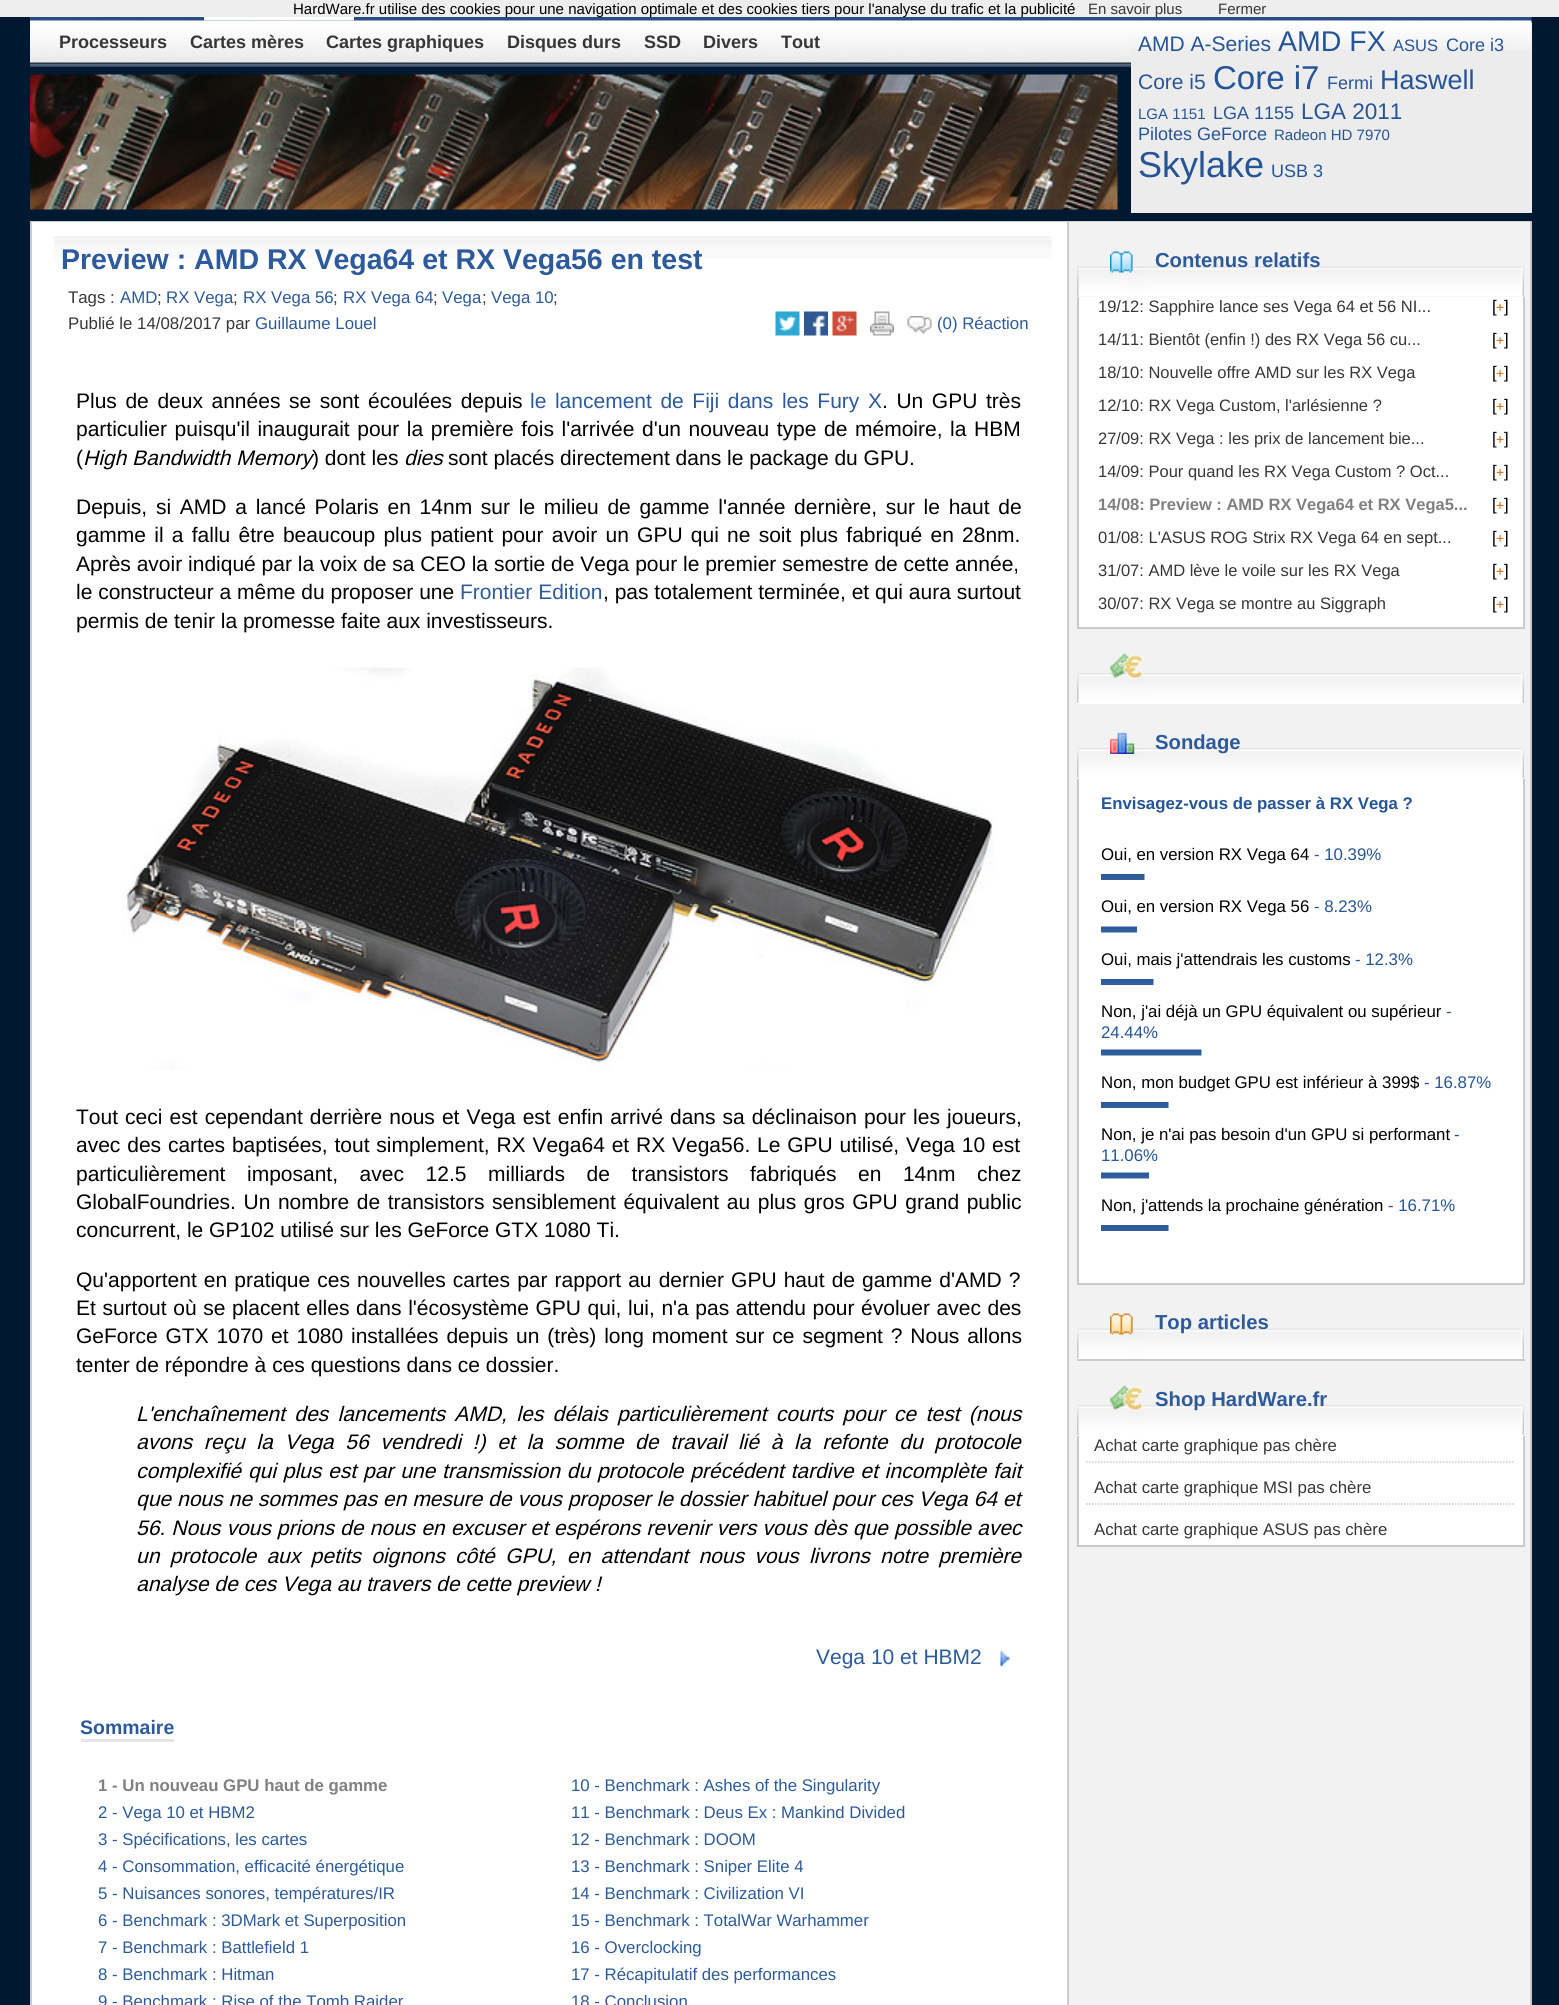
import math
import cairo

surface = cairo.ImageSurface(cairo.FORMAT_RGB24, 1559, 2005)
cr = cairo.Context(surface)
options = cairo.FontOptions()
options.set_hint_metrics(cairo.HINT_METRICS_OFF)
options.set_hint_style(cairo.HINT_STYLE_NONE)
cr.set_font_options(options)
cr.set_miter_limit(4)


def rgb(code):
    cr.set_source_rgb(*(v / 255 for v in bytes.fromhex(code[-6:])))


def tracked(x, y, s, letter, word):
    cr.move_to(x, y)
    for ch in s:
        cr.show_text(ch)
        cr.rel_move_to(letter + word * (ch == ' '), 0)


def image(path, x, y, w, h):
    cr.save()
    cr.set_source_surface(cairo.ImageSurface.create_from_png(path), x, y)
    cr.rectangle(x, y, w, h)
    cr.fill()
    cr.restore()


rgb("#001932")
cr.paint()
rgb("#eeeeee")
cr.rectangle(0, 0, 1559, 17)
cr.fill()
image("img/1.png", 30, 17, 1502, 50)
image("img/2.png", 204, 17, 150, 4)
rgb("#edecec")
cr.rectangle(1131, 23, 401, 190)
cr.fill()
image("img/3.png", 1131, 22, 401, 28)
image("img/4.png", 30, 74, 1088, 136)
cr.rectangle(31, 222, 1500, 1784)
rgb("#cacaca")
cr.stroke()
for x, y, w, h, color in [
    (1069, 222, 461, 1783, "#f2f2f2"),
    (32, 222, 1035, 1783, "#ffffff"),
    (1067, 222, 2, 1783, "#cacaca"),
]:
    rgb(color)
    cr.rectangle(x, y, w, h)
    cr.fill()
image("img/5.png", 54, 236, 998, 23)
image("img/6.png", 775, 311, 25, 25)
image("img/7.png", 804, 311, 24, 25)
image("img/8.png", 832, 311, 25, 25)
image("img/9.png", 870, 311, 24, 25)
image("img/10.png", 907, 316, 25, 18)
image("img/11.png", 122, 667, 874, 403)
image("img/12.png", 1000, 1650, 10, 17)
rgb("#e6e6e6")
cr.rectangle(81, 1739, 93, 3)
cr.fill()
image("img/13.png", 1072, 221, 458, 1)
image("img/14.png", 1077, 266, 447, 31)
image("img/15.png", 1110, 251, 24, 22)
for x, y, w, h, color in [
    (1079, 297, 444, 330, "#ffffff"),
    (1523, 297, 2, 332, "#cacaca"),
    (1077, 627, 447, 2, "#cacaca"),
    (1077, 297, 2, 332, "#cacaca"),
    (1077, 703, 447, 1, "#ffffff"),
]:
    rgb(color)
    cr.rectangle(x, y, w, h)
    cr.fill()
image("img/16.png", 1077, 673, 447, 30)
image("img/17.png", 1110, 653, 34, 26)
cr.rectangle(1077, 778, 447, 505)
cr.fill()
image("img/16.png", 1077, 748, 447, 30)
image("img/18.png", 1110, 732, 25, 22)
for x, y, w, h, color in [
    (1523, 779, 2, 505, "#cacaca"),
    (1077, 1283, 447, 2, "#cacaca"),
    (1077, 779, 2, 505, "#cacaca"),
]:
    rgb(color)
    cr.rectangle(x, y, w, h)
    cr.fill()
image("img/19.png", 1101, 874, 44, 6)
image("img/20.png", 1101, 926, 36, 7)
image("img/21.png", 1101, 979, 53, 6)
image("img/22.png", 1101, 1049, 101, 7)
image("img/23.png", 1101, 1102, 68, 6)
image("img/24.png", 1101, 1172, 48, 7)
image("img/23.png", 1101, 1225, 68, 6)
rgb("#ffffff")
cr.rectangle(1077, 1358, 447, 1)
cr.fill()
image("img/25.png", 1077, 1328, 447, 31)
image("img/26.png", 1110, 1313, 24, 22)
rgb("#cacaca")
cr.rectangle(1077, 1359, 448, 2)
cr.fill()
rgb("#ffffff")
cr.rectangle(1077, 1435, 447, 110)
cr.fill()
image("img/16.png", 1077, 1405, 447, 30)
image("img/17.png", 1110, 1385, 34, 26)
for x, y, w, h, color in [
    (1523, 1436, 2, 111, "#cacaca"),
    (1077, 1545, 447, 2, "#cacaca"),
    (1077, 1436, 2, 111, "#cacaca"),
]:
    rgb(color)
    cr.rectangle(x, y, w, h)
    cr.fill()
cr.new_path()
cr.move_to(1086, 1462)
cr.line_to(1515, 1462)
cr.set_line_width(1.5)
cr.set_dash([1.5, 1.5])
cr.stroke()
cr.new_path()
cr.move_to(1086, 1504)
cr.line_to(1515, 1504)
cr.stroke()
cr.select_font_face("Arimo")
cr.set_font_size(15)
rgb("#000000")
cr.move_to(293, 14)
cr.show_text("HardWare.fr utilise des cookies pour une navigation optimale et des cookies tiers pour l'analyse du trafic et la publicité")
rgb("#373737")
cr.move_to(1088, 14)
cr.show_text("En savoir plus")
cr.move_to(1218, 14)
cr.show_text("Fermer")
cr.select_font_face("Arimo", cairo.FONT_SLANT_NORMAL, cairo.FONT_WEIGHT_BOLD)
cr.set_font_size(18)
for x, y, s in [
    (59, 48, "Processeurs"),
    (190, 48, "Cartes mères"),
    (326, 48, "Cartes graphiques"),
    (507, 48, "Disques durs"),
    (644, 48, "SSD"),
    (703, 48, "Divers"),
    (781, 48, "Tout"),
]:
    cr.move_to(x, y)
    cr.show_text(s)
cr.select_font_face("Arimo")
cr.set_font_size(21)
rgb("#265597")
cr.move_to(1138, 51)
cr.show_text("AMD A-Series")
cr.set_font_size(28.5)
cr.move_to(1278, 51)
cr.show_text("AMD FX")
cr.set_font_size(16.5)
cr.move_to(1393, 51)
cr.show_text("ASUS")
cr.set_font_size(18)
cr.move_to(1446, 51)
cr.show_text("Core i3")
cr.set_font_size(21)
cr.move_to(1138, 89)
cr.show_text("Core i5")
cr.set_font_size(33)
cr.move_to(1213, 89)
cr.show_text("Core i7")
cr.set_font_size(18)
cr.move_to(1327, 89)
cr.show_text("Fermi")
cr.set_font_size(27)
cr.move_to(1380, 89)
cr.show_text("Haswell")
cr.set_font_size(15)
cr.move_to(1138, 119)
cr.show_text("LGA 1151")
cr.set_font_size(18)
cr.move_to(1213, 119)
cr.show_text("LGA 1155")
cr.set_font_size(22.5)
cr.move_to(1301, 119)
cr.show_text("LGA 2011")
cr.set_font_size(18)
cr.move_to(1138, 140)
cr.show_text("Pilotes GeForce")
cr.set_font_size(15)
cr.move_to(1274, 140)
cr.show_text("Radeon HD 7970")
cr.set_font_size(36)
cr.move_to(1138, 177)
cr.show_text("Skylake")
cr.set_font_size(18)
cr.move_to(1271, 177)
cr.show_text("USB 3")
cr.select_font_face("Arimo", cairo.FONT_SLANT_NORMAL, cairo.FONT_WEIGHT_BOLD)
cr.set_font_size(28.5)
rgb("#2d5a9a")
cr.move_to(61, 269)
cr.show_text("Preview : AMD RX Vega64 et RX Vega56 en test")
cr.select_font_face("Arimo")
cr.set_font_size(16.8)
rgb("#373737")
cr.move_to(68, 303)
cr.show_text("Tags :")
rgb("#2d5a9a")
cr.move_to(120, 303)
cr.show_text("AMD")
rgb("#373737")
cr.move_to(157, 303)
cr.show_text(";")
rgb("#2d5a9a")
cr.move_to(166, 303)
cr.show_text("RX Vega")
rgb("#373737")
cr.move_to(233, 303)
cr.show_text(";")
rgb("#2d5a9a")
cr.move_to(243, 303)
cr.show_text("RX Vega 56")
rgb("#373737")
cr.move_to(333, 303)
cr.show_text(";")
rgb("#2d5a9a")
cr.move_to(343, 303)
cr.show_text("RX Vega 64")
rgb("#373737")
cr.move_to(433, 303)
cr.show_text(";")
rgb("#2d5a9a")
cr.move_to(442, 303)
cr.show_text("Vega")
rgb("#373737")
cr.move_to(482, 303)
cr.show_text(";")
rgb("#2d5a9a")
cr.move_to(491, 303)
cr.show_text("Vega 10")
rgb("#373737")
cr.move_to(553, 303)
cr.show_text(";")
cr.move_to(68, 329)
cr.show_text("Publié le 14/08/2017 par")
rgb("#2d5a9a")
cr.move_to(255, 329)
cr.show_text("Guillaume Louel")
cr.move_to(937, 329)
cr.show_text("(0) Réaction")
cr.set_font_size(21)
rgb("#000000")
tracked(76, 408, "Plus de deux années se sont écoulées depuis", 0, 2.75)
rgb("#2d5a9a")
tracked(530, 408, "le lancement de Fiji dans les Fury X", 0, 2.75)
rgb("#000000")
tracked(882, 408, ". Un GPU très", 0, 2.75)
tracked(76, 436, "particulier puisqu'il inaugurait pour la première fois l'arrivée d'un nouveau type de mémoire, la HBM", 0, 1.75)
cr.move_to(76, 465)
cr.show_text("(")
cr.select_font_face("Arimo", cairo.FONT_SLANT_ITALIC)
cr.move_to(83, 465)
cr.show_text("High Bandwidth Memory")
cr.select_font_face("Arimo")
cr.move_to(312, 465)
cr.show_text(") dont les")
cr.select_font_face("Arimo", cairo.FONT_SLANT_ITALIC)
cr.move_to(404, 465)
cr.show_text("dies")
cr.select_font_face("Arimo")
cr.move_to(448, 465)
cr.show_text("sont placés directement dans le package du GPU.")
tracked(76, 514, "Depuis, si AMD a lancé Polaris en 14nm sur le milieu de gamme l'année dernière, sur le haut de", 0, 2.9)
tracked(76, 542, "gamme il a fallu être beaucoup plus patient pour avoir un GPU qui ne soit plus fabriqué en 28nm.", 0, 2.4)
cr.move_to(76, 571)
cr.show_text("Après avoir indiqué par la voix de sa CEO la sortie de Vega pour le premier semestre de cette année,")
cr.move_to(76, 599)
cr.show_text("le constructeur a même du proposer une")
rgb("#2d5a9a")
cr.move_to(460, 599)
cr.show_text("Frontier Edition")
rgb("#000000")
cr.move_to(603, 599)
cr.show_text(", pas totalement terminée, et qui aura surtout")
cr.move_to(76, 628)
cr.show_text("permis de tenir la promesse faite aux investisseurs.")
tracked(76, 1124, "Tout ceci est cependant derrière nous et Vega est enfin arrivé dans sa déclinaison pour les joueurs,", 0, 1.25)
tracked(76, 1152, "avec des cartes baptisées, tout simplement, RX Vega64 et RX Vega56. Le GPU utilisé, Vega 10 est", 0, 1)
tracked(76, 1181, "particulièrement imposant, avec 12.5 milliards de transistors fabriqués en 14nm chez", 0, 15.75)
tracked(76, 1209, "GlobalFoundries. Un nombre de transistors sensiblement équivalent au plus gros GPU grand public", 0, 1.75)
cr.move_to(76, 1237)
cr.show_text("concurrent, le GP102 utilisé sur les GeForce GTX 1080 Ti.")
tracked(76, 1287, "Qu'apportent en pratique ces nouvelles cartes par rapport au dernier GPU haut de gamme d'AMD ?", 0, 1.25)
tracked(76, 1315, "Et surtout où se placent elles dans l'écosystème GPU qui, lui, n'a pas attendu pour évoluer avec des", 0, 0.75)
tracked(76, 1343, "GeForce GTX 1070 et 1080 installées depuis un (très) long moment sur ce segment ? Nous allons", 0, 2)
cr.move_to(76, 1372)
cr.show_text("tenter de répondre à ces questions dans ce dossier.")
cr.select_font_face("Arimo", cairo.FONT_SLANT_ITALIC)
tracked(136, 1421, "L'enchaînement des lancements AMD, les délais particulièrement courts pour ce test (nous", 0, 3.6)
tracked(136, 1449, "avons reçu la Vega 56 vendredi !) et la somme de travail lié à la refonte du protocole", 0, 5.9)
tracked(136, 1478, "complexifié qui plus est par une transmission du protocole précédent tardive et incomplète fait", 0, 1)
tracked(136, 1506, "que nous ne sommes pas en mesure de vous proposer le dossier habituel pour ces Vega 64 et", 0, 0.1)
tracked(136, 1535, "56. Nous vous prions de nous en excuser et espérons revenir vers vous dès que possible avec", 0, 0.25)
tracked(136, 1563, "un protocole aux petits oignons côté GPU, en attendant nous vous livrons notre première", 0, 4.5)
cr.move_to(136, 1591)
cr.show_text("analyse de ces Vega au travers de cette preview !")
cr.select_font_face("Arimo")
rgb("#2d5a9a")
cr.move_to(816, 1664)
cr.show_text("Vega 10 et HBM2")
cr.select_font_face("Arimo", cairo.FONT_SLANT_NORMAL, cairo.FONT_WEIGHT_BOLD)
cr.set_font_size(19.5)
cr.move_to(80, 1734)
cr.show_text("Sommaire")
cr.set_font_size(16.8)
rgb("#808080")
cr.move_to(98, 1791)
cr.show_text("1 - Un nouveau GPU haut de gamme")
cr.select_font_face("Arimo")
rgb("#2d5a9a")
for x, y, s in [
    (98, 1818, "2 - Vega 10 et HBM2"),
    (98, 1845, "3 - Spécifications, les cartes"),
    (98, 1872, "4 - Consommation, efficacité énergétique"),
    (98, 1899, "5 - Nuisances sonores, températures/IR"),
    (98, 1926, "6 - Benchmark : 3DMark et Superposition"),
    (98, 1953, "7 - Benchmark : Battlefield 1"),
    (98, 1980, "8 - Benchmark : Hitman"),
    (98, 2007, "9 - Benchmark : Rise of the Tomb Raider"),
    (571, 1791, "10 - Benchmark : Ashes of the Singularity"),
    (571, 1818, "11 - Benchmark : Deus Ex : Mankind Divided"),
    (571, 1845, "12 - Benchmark : DOOM"),
    (571, 1872, "13 - Benchmark : Sniper Elite 4"),
    (571, 1899, "14 - Benchmark : Civilization VI"),
    (571, 1926, "15 - Benchmark : TotalWar Warhammer"),
    (571, 1953, "16 - Overclocking"),
    (571, 1980, "17 - Récapitulatif des performances"),
    (571, 2007, "18 - Conclusion"),
]:
    cr.move_to(x, y)
    cr.show_text(s)
cr.select_font_face("Arimo", cairo.FONT_SLANT_NORMAL, cairo.FONT_WEIGHT_BOLD)
cr.set_font_size(20.25)
cr.move_to(1155, 267)
cr.show_text("Contenus relatifs")
cr.select_font_face("Arimo")
cr.set_font_size(16.5)
rgb("#373737")
cr.move_to(1098, 312)
cr.show_text("19/12: Sapphire lance ses Vega 64 et 56 NI...")
cr.set_font_size(16.8)
rgb("#000000")
cr.move_to(1492, 312)
cr.show_text("[")
cr.set_font_size(14)
rgb("#cc6908")
cr.move_to(1496, 312)
cr.show_text("+")
cr.set_font_size(16.8)
rgb("#000000")
cr.move_to(1504, 312)
cr.show_text("]")
cr.set_font_size(16.5)
rgb("#373737")
cr.move_to(1098, 345)
cr.show_text("14/11: Bientôt (enfin !) des RX Vega 56 cu...")
cr.set_font_size(16.8)
rgb("#000000")
cr.move_to(1492, 345)
cr.show_text("[")
cr.set_font_size(14)
rgb("#cc6908")
cr.move_to(1496, 345)
cr.show_text("+")
cr.set_font_size(16.8)
rgb("#000000")
cr.move_to(1504, 345)
cr.show_text("]")
cr.set_font_size(16.5)
rgb("#373737")
cr.move_to(1098, 378)
cr.show_text("18/10: Nouvelle offre AMD sur les RX Vega")
cr.set_font_size(16.8)
rgb("#000000")
cr.move_to(1492, 378)
cr.show_text("[")
cr.set_font_size(14)
rgb("#cc6908")
cr.move_to(1496, 378)
cr.show_text("+")
cr.set_font_size(16.8)
rgb("#000000")
cr.move_to(1504, 378)
cr.show_text("]")
cr.set_font_size(16.5)
rgb("#373737")
cr.move_to(1098, 411)
cr.show_text("12/10: RX Vega Custom, l'arlésienne ?")
cr.set_font_size(16.8)
rgb("#000000")
cr.move_to(1492, 411)
cr.show_text("[")
cr.set_font_size(14)
rgb("#cc6908")
cr.move_to(1496, 411)
cr.show_text("+")
cr.set_font_size(16.8)
rgb("#000000")
cr.move_to(1504, 411)
cr.show_text("]")
cr.set_font_size(16.5)
rgb("#373737")
cr.move_to(1098, 444)
cr.show_text("27/09: RX Vega : les prix de lancement bie...")
cr.set_font_size(16.8)
rgb("#000000")
cr.move_to(1492, 444)
cr.show_text("[")
cr.set_font_size(14)
rgb("#cc6908")
cr.move_to(1496, 444)
cr.show_text("+")
cr.set_font_size(16.8)
rgb("#000000")
cr.move_to(1504, 444)
cr.show_text("]")
cr.set_font_size(16.5)
rgb("#373737")
cr.move_to(1098, 477)
cr.show_text("14/09: Pour quand les RX Vega Custom ? Oct...")
cr.set_font_size(16.8)
rgb("#000000")
cr.move_to(1492, 477)
cr.show_text("[")
cr.set_font_size(14)
rgb("#cc6908")
cr.move_to(1496, 477)
cr.show_text("+")
cr.set_font_size(16.8)
rgb("#000000")
cr.move_to(1504, 477)
cr.show_text("]")
cr.select_font_face("Arimo", cairo.FONT_SLANT_NORMAL, cairo.FONT_WEIGHT_BOLD)
cr.set_font_size(16.5)
rgb("#808080")
cr.move_to(1098, 510)
cr.show_text("14/08: Preview : AMD RX Vega64 et RX Vega5...")
cr.select_font_face("Arimo")
cr.set_font_size(16.8)
rgb("#000000")
cr.move_to(1492, 510)
cr.show_text("[")
cr.set_font_size(14)
rgb("#cc6908")
cr.move_to(1496, 510)
cr.show_text("+")
cr.set_font_size(16.8)
rgb("#000000")
cr.move_to(1504, 510)
cr.show_text("]")
cr.set_font_size(16.5)
rgb("#373737")
cr.move_to(1098, 543)
cr.show_text("01/08: L'ASUS ROG Strix RX Vega 64 en sept...")
cr.set_font_size(16.8)
rgb("#000000")
cr.move_to(1492, 543)
cr.show_text("[")
cr.set_font_size(14)
rgb("#cc6908")
cr.move_to(1496, 543)
cr.show_text("+")
cr.set_font_size(16.8)
rgb("#000000")
cr.move_to(1504, 543)
cr.show_text("]")
cr.set_font_size(16.5)
rgb("#373737")
cr.move_to(1098, 576)
cr.show_text("31/07: AMD lève le voile sur les RX Vega")
cr.set_font_size(16.8)
rgb("#000000")
cr.move_to(1492, 576)
cr.show_text("[")
cr.set_font_size(14)
rgb("#cc6908")
cr.move_to(1496, 576)
cr.show_text("+")
cr.set_font_size(16.8)
rgb("#000000")
cr.move_to(1504, 576)
cr.show_text("]")
cr.set_font_size(16.5)
rgb("#373737")
cr.move_to(1098, 609)
cr.show_text("30/07: RX Vega se montre au Siggraph")
cr.set_font_size(16.8)
rgb("#000000")
cr.move_to(1492, 609)
cr.show_text("[")
cr.set_font_size(14)
rgb("#cc6908")
cr.move_to(1496, 609)
cr.show_text("+")
cr.set_font_size(16.8)
rgb("#000000")
cr.move_to(1504, 609)
cr.show_text("]")
cr.select_font_face("Arimo", cairo.FONT_SLANT_NORMAL, cairo.FONT_WEIGHT_BOLD)
cr.set_font_size(20.25)
rgb("#2d5a9a")
cr.move_to(1155, 749)
cr.show_text("Sondage")
cr.set_font_size(16.8)
rgb("#265597")
cr.move_to(1101, 809)
cr.show_text("Envisagez-vous de passer à RX Vega ?")
cr.select_font_face("Arimo")
rgb("#000000")
cr.move_to(1101, 860)
cr.show_text("Oui, en version RX Vega 64")
rgb("#265597")
cr.move_to(1314, 860)
cr.show_text("- 10.39%")
rgb("#000000")
cr.move_to(1101, 912)
cr.show_text("Oui, en version RX Vega 56")
rgb("#265597")
cr.move_to(1314, 912)
cr.show_text("- 8.23%")
rgb("#000000")
cr.move_to(1101, 965)
cr.show_text("Oui, mais j'attendrais les customs")
rgb("#265597")
cr.move_to(1355, 965)
cr.show_text("- 12.3%")
rgb("#000000")
cr.move_to(1101, 1017)
cr.show_text("Non, j'ai déjà un GPU équivalent ou supérieur")
rgb("#265597")
cr.move_to(1446, 1017)
cr.show_text("-")
cr.move_to(1101, 1038)
cr.show_text("24.44%")
rgb("#000000")
cr.move_to(1101, 1088)
cr.show_text("Non, mon budget GPU est inférieur à 399$")
rgb("#265597")
cr.move_to(1424, 1088)
cr.show_text("- 16.87%")
rgb("#000000")
cr.move_to(1101, 1140)
cr.show_text("Non, je n'ai pas besoin d'un GPU si performant")
rgb("#265597")
cr.move_to(1454, 1140)
cr.show_text("-")
cr.move_to(1101, 1161)
cr.show_text("11.06%")
rgb("#000000")
cr.move_to(1101, 1211)
cr.show_text("Non, j'attends la prochaine génération")
rgb("#265597")
cr.move_to(1388, 1211)
cr.show_text("- 16.71%")
cr.select_font_face("Arimo", cairo.FONT_SLANT_NORMAL, cairo.FONT_WEIGHT_BOLD)
cr.set_font_size(20.25)
rgb("#2d5a9a")
cr.move_to(1155, 1329)
cr.show_text("Top articles")
cr.move_to(1155, 1406)
cr.show_text("Shop HardWare.fr")
cr.select_font_face("Arimo")
cr.set_font_size(16.8)
rgb("#373737")
for x, y, s in [
    (1094, 1451, "Achat carte graphique pas chère"),
    (1094, 1493, "Achat carte graphique MSI pas chère"),
    (1094, 1535, "Achat carte graphique ASUS pas chère"),
]:
    cr.move_to(x, y)
    cr.show_text(s)
surface.write_to_png("page.png")
